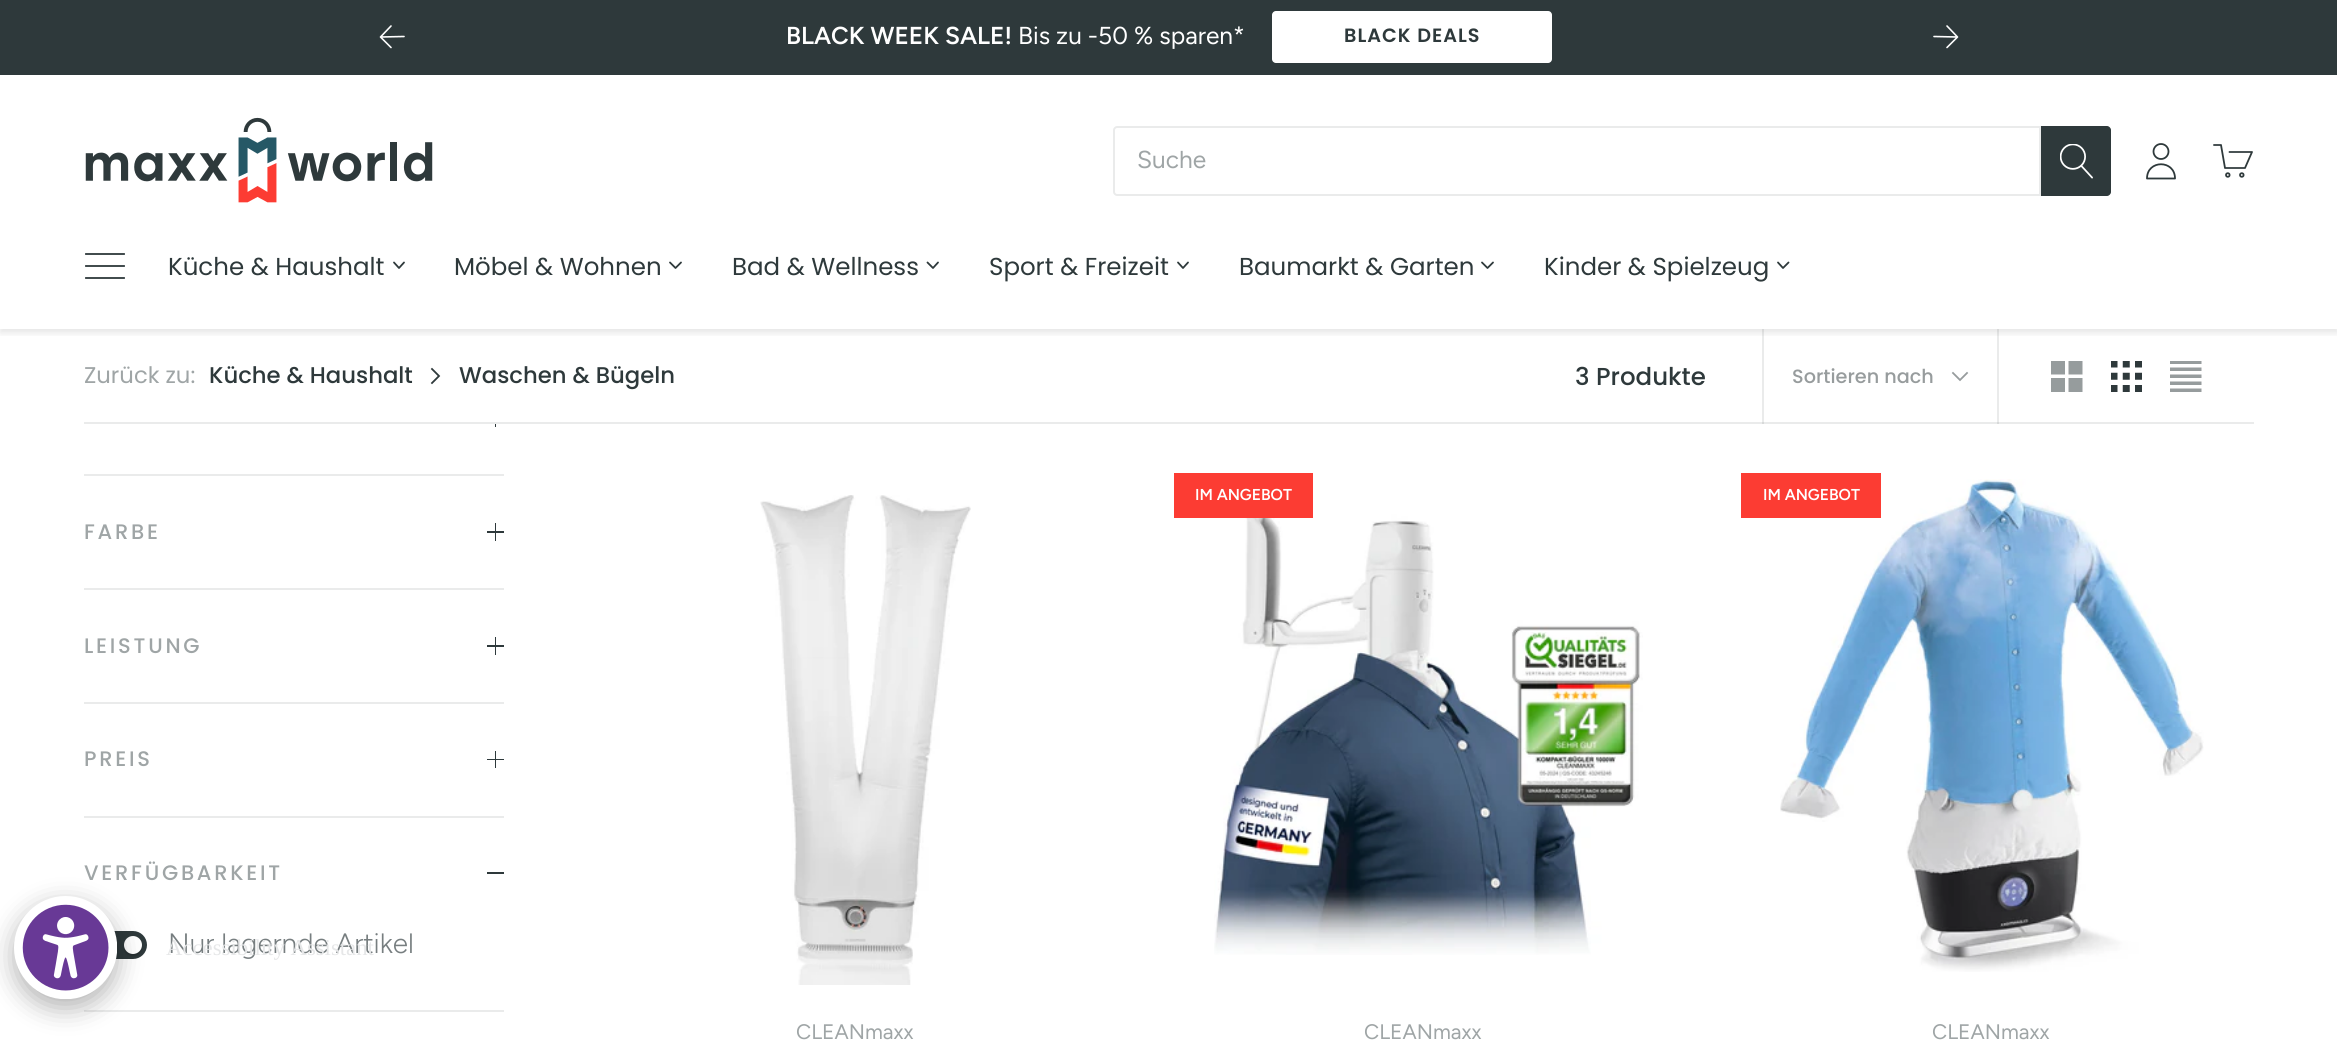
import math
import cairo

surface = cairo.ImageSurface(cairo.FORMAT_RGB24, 2337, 1046)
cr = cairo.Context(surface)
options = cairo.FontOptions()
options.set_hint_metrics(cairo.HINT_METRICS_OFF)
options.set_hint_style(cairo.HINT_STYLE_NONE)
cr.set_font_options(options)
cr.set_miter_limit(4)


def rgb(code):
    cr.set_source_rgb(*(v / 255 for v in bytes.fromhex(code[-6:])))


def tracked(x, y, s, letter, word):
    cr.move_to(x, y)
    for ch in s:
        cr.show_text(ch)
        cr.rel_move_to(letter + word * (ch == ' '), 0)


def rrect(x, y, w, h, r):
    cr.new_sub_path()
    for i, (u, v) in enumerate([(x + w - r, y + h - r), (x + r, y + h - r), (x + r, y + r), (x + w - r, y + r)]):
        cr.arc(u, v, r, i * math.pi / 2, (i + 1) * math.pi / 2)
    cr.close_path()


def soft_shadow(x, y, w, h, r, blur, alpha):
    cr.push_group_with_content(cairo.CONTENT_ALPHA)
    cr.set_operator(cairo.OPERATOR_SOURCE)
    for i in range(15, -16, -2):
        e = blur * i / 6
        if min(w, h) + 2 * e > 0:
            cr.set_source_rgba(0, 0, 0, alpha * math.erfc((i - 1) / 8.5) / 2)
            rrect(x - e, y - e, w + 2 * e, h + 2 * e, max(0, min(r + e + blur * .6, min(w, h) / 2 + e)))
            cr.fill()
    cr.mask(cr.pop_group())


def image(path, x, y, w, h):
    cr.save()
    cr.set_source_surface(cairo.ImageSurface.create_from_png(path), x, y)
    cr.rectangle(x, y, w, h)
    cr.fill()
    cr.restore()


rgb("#ffffff")
cr.paint()
rgb("#2e393b")
cr.rectangle(0, 0, 2337, 75)
cr.fill()
cr.new_path()
cr.move_to(391, 47.5)
cr.line_to(380.5, 37)
cr.line_to(391, 26)
cr.move_to(404, 36.5)
cr.line_to(380.5, 37)
rgb("#ffffff")
cr.set_line_width(1.6)
cr.set_line_cap(cairo.LINE_CAP_ROUND)
cr.set_line_join(cairo.LINE_JOIN_ROUND)
cr.stroke()
rrect(1272, 11, 280, 52, 4)
cr.fill()
cr.new_path()
cr.move_to(1947, 47.5)
cr.line_to(1957.5, 37)
cr.line_to(1947, 26)
cr.move_to(1934, 36.5)
cr.line_to(1957.5, 37)
cr.stroke()
rgb("#eaebeb")
cr.rectangle(1762, 329, 2, 95)
cr.fill()
cr.rectangle(1997, 329, 2, 95)
cr.fill()
cr.save()
cr.rectangle(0, 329, 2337, 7)
cr.clip()
rgb("#000000")
soft_shadow(0, 79, 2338, 254, 0, 3.5, 0.1)
cr.restore()
image("img/1.png", 85, 117, 348, 86)
cr.new_path()
cr.move_to(1117, 127)
cr.line_to(2040, 127)
cr.line_to(2040, 195)
cr.line_to(1117, 195)
cr.curve_to(1115.5, 195, 1114, 193.5, 1114, 192)
cr.line_to(1114, 130)
cr.curve_to(1114, 128.5, 1115.5, 127, 1117, 127)
cr.close_path()
cr.set_line_width(2)
cr.set_line_cap(cairo.LINE_CAP_BUTT)
cr.set_line_join(cairo.LINE_JOIN_MITER)
cr.stroke()
rgb("#2e393b")
cr.new_path()
cr.move_to(2041, 126)
cr.line_to(2107, 126)
cr.curve_to(2109, 126, 2111, 128, 2111, 130)
cr.line_to(2111, 192)
cr.curve_to(2111, 194, 2109, 196, 2107, 196)
cr.line_to(2041, 196)
cr.close_path()
cr.fill()
image("img/2.png", 2060, 144, 33, 35)
cr.arc(2161, 151.5, 7.5, 0, 2 * math.pi)
cr.set_line_width(1.8)
cr.stroke()
cr.new_path()
cr.move_to(2175, 178.5)
cr.curve_to(2175, 159.5, 2147, 159.5, 2147, 178.5)
cr.close_path()
cr.set_line_cap(cairo.LINE_CAP_ROUND)
cr.set_line_join(cairo.LINE_JOIN_ROUND)
cr.stroke()
cr.new_path()
cr.move_to(2229.5, 152)
cr.line_to(2252, 152)
cr.line_to(2245, 168)
cr.line_to(2225, 168)
cr.line_to(2221, 145)
cr.line_to(2214, 145)
cr.stroke()
cr.arc(2227.8, 175, 1.8, 0, 2 * math.pi)
cr.set_line_cap(cairo.LINE_CAP_BUTT)
cr.set_line_join(cairo.LINE_JOIN_MITER)
cr.stroke()
cr.arc(2241.8, 175, 1.8, 0, 2 * math.pi)
cr.stroke()
cr.new_path()
cr.move_to(86, 278)
cr.line_to(124, 278)
cr.move_to(86, 266)
cr.line_to(124, 266)
cr.move_to(86, 254)
cr.line_to(124, 254)
cr.set_line_cap(cairo.LINE_CAP_SQUARE)
cr.stroke()
cr.new_path()
cr.move_to(404, 262.5)
cr.line_to(399, 268)
cr.line_to(394, 262.5)
cr.set_line_cap(cairo.LINE_CAP_ROUND)
cr.set_line_join(cairo.LINE_JOIN_ROUND)
cr.stroke()
cr.new_path()
cr.move_to(681, 262.5)
cr.line_to(675.5, 268)
cr.line_to(670, 262.5)
cr.stroke()
cr.new_path()
cr.move_to(938, 262.5)
cr.line_to(933, 268)
cr.line_to(927.5, 262.5)
cr.stroke()
cr.new_path()
cr.move_to(1188, 262.5)
cr.line_to(1183, 268)
cr.line_to(1178, 262.5)
cr.stroke()
cr.new_path()
cr.move_to(1493, 262.5)
cr.line_to(1487.5, 268)
cr.line_to(1482, 262.5)
cr.stroke()
cr.new_path()
cr.move_to(1788.5, 262.5)
cr.line_to(1783, 268)
cr.line_to(1778, 262.5)
cr.stroke()
cr.new_path()
cr.move_to(432, 383)
cr.line_to(439, 376)
cr.line_to(432, 369)
cr.set_line_cap(cairo.LINE_CAP_SQUARE)
cr.set_line_join(cairo.LINE_JOIN_MITER)
cr.stroke()
cr.new_path()
cr.move_to(1953, 373)
cr.line_to(1960, 380)
cr.line_to(1967, 373)
rgb("#979c9d")
cr.stroke()
image("img/3.png", 2051, 361, 32, 31)
image("img/4.png", 2111, 361, 31, 31)
image("img/5.png", 2170, 361, 32, 31)
cr.set_source_rgba(0.18, 0.224, 0.231, 0.1)
cr.rectangle(84, 422, 2170, 2)
cr.fill()
rgb("#eaebeb")
cr.rectangle(84, 474, 420, 2)
cr.fill()
rgb("#2e393b")
cr.rectangle(495, 424, 1, 3)
cr.fill()
rgb("#eaebeb")
cr.rectangle(84, 588, 420, 2)
cr.fill()
rgb("#2e393b")
cr.rectangle(495, 523, 1, 18)
cr.rectangle(487, 531, 17, 2)
cr.fill()
rgb("#eaebeb")
cr.rectangle(84, 702, 420, 2)
cr.fill()
rgb("#2e393b")
cr.rectangle(495, 637, 1, 18)
cr.rectangle(487, 645, 17, 2)
cr.fill()
rgb("#eaebeb")
cr.rectangle(84, 816, 420, 2)
cr.fill()
rgb("#2e393b")
cr.rectangle(495, 751, 1, 17)
cr.rectangle(487, 759, 17, 1)
cr.fill()
rgb("#eaebeb")
cr.rectangle(84, 1010, 420, 2)
cr.fill()
rgb("#2e393b")
cr.rectangle(487, 872, 17, 2)
cr.fill()
rrect(84, 931, 63, 28, 14)
cr.fill()
rgb("#000000")
soft_shadow(124, 938, 18, 18, 9, 1, 0.2)
rgb("#ffffff")
cr.arc(133, 945, 9, 0, 2 * math.pi)
cr.fill()
image("img/6.png", 760, 495, 211, 490)
image("img/7.png", 1214, 510, 429, 445)
rgb("#fc3c33")
cr.rectangle(1174, 473, 139, 45)
cr.fill()
image("img/8.png", 1780, 479, 424, 493)
cr.rectangle(1741, 473, 140, 45)
cr.fill()
rgb("#000000")
soft_shadow(14, 905, 103, 103, 51.5, 13, 0.3)
image("img/9.png", 14, 896, 103, 103)
cr.select_font_face("Figtree SemiBold")
cr.set_font_size(24.5)
rgb("#ffffff")
cr.move_to(786, 44)
cr.show_text("BLACK WEEK SALE!")
cr.select_font_face("Figtree")
cr.move_to(1018, 44)
cr.show_text("Bis zu -50 % sparen*")
cr.select_font_face("Poppins SemiBold")
cr.set_font_size(19.25)
rgb("#2e393b")
tracked(1344, 42, "BLACK DEALS", 1, 0)
cr.select_font_face("Figtree")
cr.set_font_size(24.5)
rgb("#9fa5a6")
cr.move_to(1137, 168)
cr.show_text("Suche")
cr.select_font_face("Poppins")
rgb("#2e393b")
for x, y, s in [
    (168, 275, "Küche & Haushalt"),
    (454, 275, "Möbel & Wohnen"),
    (732, 275, "Bad & Wellness"),
    (989, 275, "Sport & Freizeit"),
    (1239, 275, "Baumarkt & Garten"),
    (1544, 275, "Kinder & Spielzeug"),
]:
    cr.move_to(x, y)
    cr.show_text(s)
cr.set_font_size(22.75)
rgb("#9fa5a6")
cr.move_to(84, 383)
cr.show_text("Zurück zu:")
cr.select_font_face("Poppins Medium")
rgb("#2e393b")
cr.move_to(209, 383)
cr.show_text("Küche & Haushalt")
cr.move_to(459, 383)
cr.show_text("Waschen & Bügeln")
cr.set_font_size(24.5)
cr.move_to(1575, 385)
cr.show_text("3 Produkte")
cr.set_font_size(19.25)
rgb("#979c9d")
cr.move_to(1792, 383)
cr.show_text("Sortieren nach")
cr.set_font_size(21)
rgb("#9fa5a6")
for x, y, s in [
    (84, 539, "FARBE"),
    (84, 653, "LEISTUNG"),
    (84, 766, "PREIS"),
    (84, 880, "VERFÜGBARKEIT"),
]:
    tracked(x, y, s, 2.75, 0)
cr.select_font_face("Figtree Light")
cr.set_font_size(28)
rgb("#777e80")
cr.move_to(168, 953)
cr.show_text("Nur lagernde Artikel")
cr.select_font_face("Figtree")
cr.set_font_size(21)
rgb("#9fa5a6")
cr.move_to(796, 1039)
cr.show_text("CLEANmaxx")
cr.select_font_face("Figtree SemiBold")
cr.set_font_size(15.75)
rgb("#ffffff")
cr.move_to(1195, 500)
cr.show_text("IM ANGEBOT")
cr.select_font_face("Figtree")
cr.set_font_size(21)
rgb("#9fa5a6")
cr.move_to(1364, 1039)
cr.show_text("CLEANmaxx")
cr.select_font_face("Figtree SemiBold")
cr.set_font_size(15.75)
rgb("#ffffff")
cr.move_to(1763, 500)
cr.show_text("IM ANGEBOT")
cr.select_font_face("Figtree")
cr.set_font_size(21)
rgb("#9fa5a6")
cr.move_to(1932, 1039)
cr.show_text("CLEANmaxx")
cr.select_font_face("Liberation Serif")
cr.set_font_size(22.75)
rgb("#e6e7e8")
cr.move_to(166, 955)
cr.show_text("Accessibility Assistant")
surface.write_to_png("page.png")
